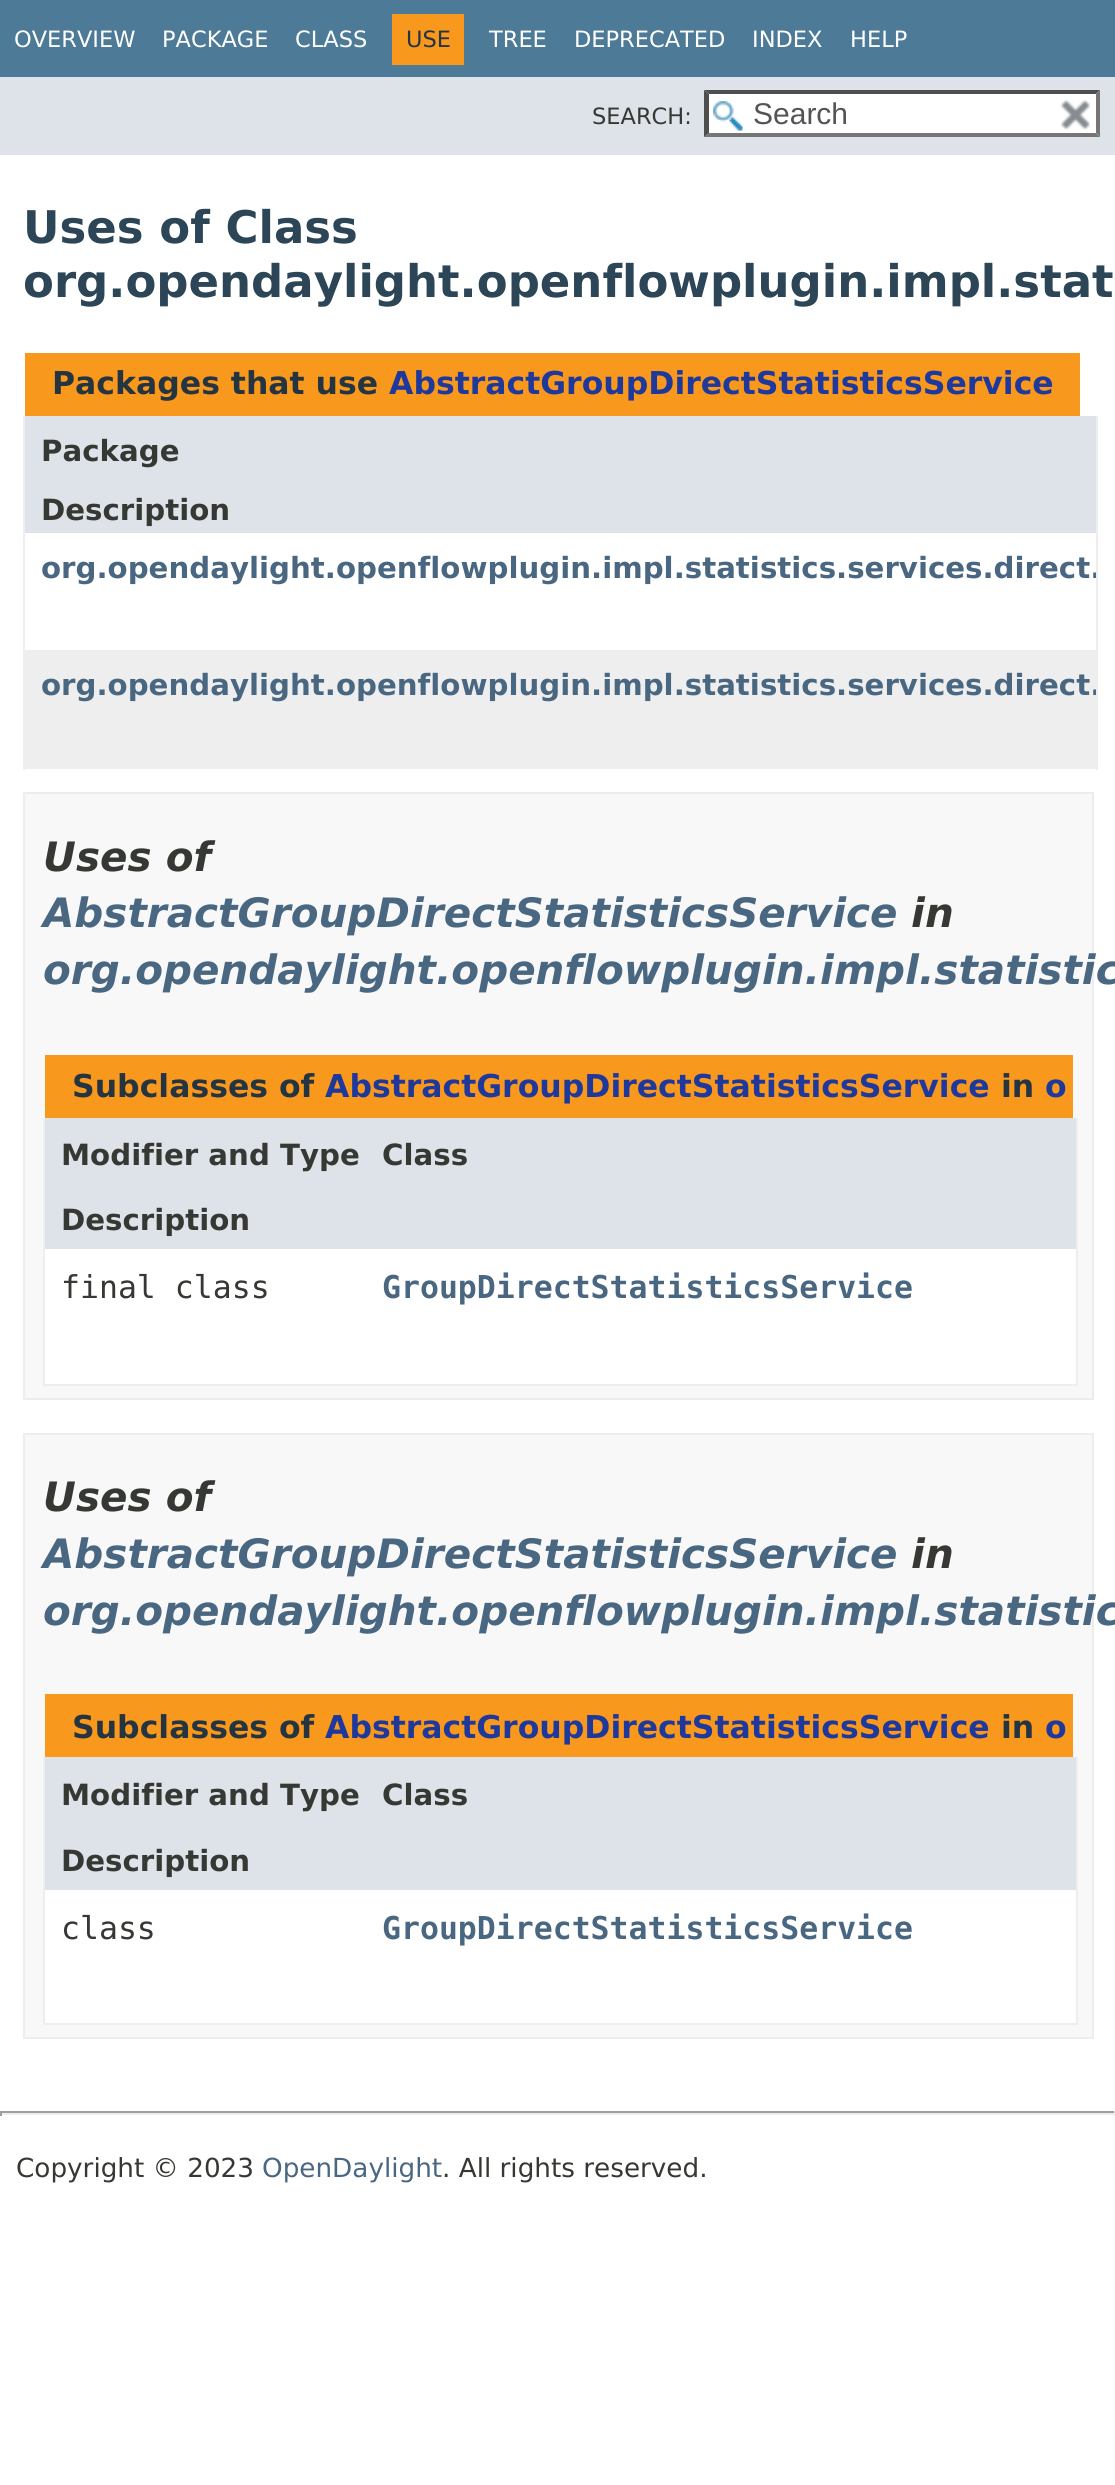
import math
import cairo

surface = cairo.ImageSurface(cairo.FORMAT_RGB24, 1115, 2485)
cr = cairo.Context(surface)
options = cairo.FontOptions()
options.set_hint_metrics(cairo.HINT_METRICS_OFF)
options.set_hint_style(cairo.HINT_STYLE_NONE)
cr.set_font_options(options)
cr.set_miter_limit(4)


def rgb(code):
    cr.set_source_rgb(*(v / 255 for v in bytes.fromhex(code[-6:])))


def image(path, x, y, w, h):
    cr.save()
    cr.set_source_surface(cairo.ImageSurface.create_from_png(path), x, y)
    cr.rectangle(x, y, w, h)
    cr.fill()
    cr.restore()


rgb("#ffffff")
cr.paint()
for x, y, w, h, color in [
    (0, 0, 1115, 77, "#4d7a97"),
    (392, 14, 72, 51, "#f8981d"),
    (0, 77, 1115, 78, "#dee3e9"),
    (704, 90, 396, 47, "#ffffff"),
]:
    rgb(color)
    cr.rectangle(x, y, w, h)
    cr.fill()
image("img/1.png", 713, 101, 30, 30)
rgb("#4f4f4f")
cr.new_path()
cr.move_to(704, 90)
cr.line_to(1100, 90)
cr.line_to(1096, 94)
cr.line_to(709, 94)
cr.close_path()
cr.fill()
rgb("#767676")
cr.new_path()
cr.move_to(1100, 90)
cr.line_to(1100, 137)
cr.line_to(1096, 133)
cr.line_to(1096, 94)
cr.close_path()
cr.fill()
cr.new_path()
cr.move_to(1100, 137)
cr.line_to(704, 137)
cr.line_to(709, 133)
cr.line_to(1096, 133)
cr.close_path()
cr.fill()
rgb("#4f4f4f")
cr.new_path()
cr.move_to(704, 137)
cr.line_to(704, 90)
cr.line_to(709, 94)
cr.line_to(709, 133)
cr.close_path()
cr.fill()
image("img/2.png", 1060, 99, 30, 31)
for x, y, w, h, color in [
    (25, 353, 1055, 63, "#f8981d"),
    (1096, 416, 2, 354, "#eeeeee"),
    (23, 767, 1075, 2, "#eeeeee"),
    (23, 416, 2, 354, "#eeeeee"),
    (25, 416, 1071, 117, "#dee3e9"),
    (25, 650, 1071, 117, "#eeeeef"),
]:
    rgb(color)
    cr.rectangle(x, y, w, h)
    cr.fill()
rgb("#f8f8f8")
cr.rectangle(24, 793, 1069, 606)
cr.fill_preserve()
rgb("#ededed")
cr.stroke()
for x, y, w, h, color in [
    (45, 1055, 1028, 63, "#f8981d"),
    (1076, 1118, 2, 268, "#eeeeee"),
    (43, 1384, 1035, 2, "#eeeeee"),
    (43, 1118, 2, 268, "#eeeeee"),
    (45, 1118, 1031, 66, "#dee3e9"),
    (45, 1184, 1031, 65, "#dee3e9"),
    (45, 1249, 1031, 70, "#ffffff"),
    (45, 1319, 1031, 65, "#ffffff"),
]:
    rgb(color)
    cr.rectangle(x, y, w, h)
    cr.fill()
rgb("#f8f8f8")
cr.rectangle(24, 1434, 1069, 604)
cr.fill_preserve()
rgb("#ededed")
cr.stroke()
for x, y, w, h, color in [
    (45, 1694, 1028, 63, "#f8981d"),
    (1076, 1757, 2, 268, "#eeeeee"),
    (43, 2023, 1035, 2, "#eeeeee"),
    (43, 1757, 2, 268, "#eeeeee"),
    (45, 1757, 1031, 66, "#dee3e9"),
    (45, 1823, 1031, 67, "#dee3e9"),
    (45, 1890, 1031, 68, "#ffffff"),
    (45, 1958, 1031, 65, "#ffffff"),
    (0, 2111, 1115, 2, "#9f9f9f"),
    (1114, 2111, 1, 5, "#eeeeee"),
    (0, 2113, 1115, 2, "#eeeeee"),
    (0, 2111, 2, 5, "#9f9f9f"),
]:
    rgb(color)
    cr.rectangle(x, y, w, h)
    cr.fill()
cr.select_font_face("DejaVu Sans")
cr.set_font_size(22.5)
rgb("#ffffff")
for x, y, s in [
    (14, 47, "OVERVIEW"),
    (162, 47, "PACKAGE"),
    (295, 47, "CLASS"),
]:
    cr.move_to(x, y)
    cr.show_text(s)
rgb("#253441")
cr.move_to(406, 47)
cr.show_text("USE")
rgb("#ffffff")
for x, y, s in [
    (489, 47, "TREE"),
    (574, 47, "DEPRECATED"),
    (752, 47, "INDEX"),
    (850, 47, "HELP"),
]:
    cr.move_to(x, y)
    cr.show_text(s)
rgb("#353833")
cr.move_to(592, 124)
cr.show_text("SEARCH:")
cr.select_font_face("Liberation Sans")
cr.set_font_size(30)
rgb("#545454")
cr.move_to(753, 124)
cr.show_text("Search")
cr.select_font_face("DejaVu Sans", cairo.FONT_SLANT_NORMAL, cairo.FONT_WEIGHT_BOLD)
cr.set_font_size(45)
rgb("#2c4557")
cr.move_to(23, 243)
cr.show_text("Uses of Class")
cr.move_to(23, 297)
cr.show_text("org.opendaylight.openflowplugin.impl.stat")
cr.set_font_size(31.5)
rgb("#253441")
cr.move_to(52, 394)
cr.show_text("Packages that use")
rgb("#1f389c")
cr.move_to(389, 394)
cr.show_text("AbstractGroupDirectStatisticsService")
cr.set_font_size(29.25)
rgb("#353833")
cr.move_to(41, 461)
cr.show_text("Package")
cr.move_to(41, 520)
cr.show_text("Description")
cr.save()
cr.rectangle(25, 533, 1071, 59)
cr.clip()
rgb("#4a6782")
cr.move_to(41, 578)
cr.show_text("org.opendaylight.openflowplugin.impl.statistics.services.direct.")
cr.restore()
cr.save()
cr.rectangle(25, 650, 1071, 59)
cr.clip()
rgb("#4a6782")
cr.move_to(41, 695)
cr.show_text("org.opendaylight.openflowplugin.impl.statistics.services.direct.")
cr.restore()
cr.select_font_face("DejaVu Sans", cairo.FONT_SLANT_ITALIC, cairo.FONT_WEIGHT_BOLD)
cr.set_font_size(40.5)
cr.move_to(43, 871)
cr.show_text("Uses of")
rgb("#4a6782")
cr.move_to(43, 927)
cr.show_text("AbstractGroupDirectStatisticsService")
rgb("#353833")
cr.move_to(911, 927)
cr.show_text("in")
rgb("#4a6782")
cr.move_to(43, 984)
cr.show_text("org.opendaylight.openflowplugin.impl.statistic")
cr.select_font_face("DejaVu Sans", cairo.FONT_SLANT_NORMAL, cairo.FONT_WEIGHT_BOLD)
cr.set_font_size(31.5)
rgb("#253441")
cr.move_to(72, 1097)
cr.show_text("Subclasses of")
rgb("#1f389c")
cr.move_to(325, 1097)
cr.show_text("AbstractGroupDirectStatisticsService")
rgb("#253441")
cr.move_to(1001, 1097)
cr.show_text("in")
rgb("#1f389c")
cr.move_to(1045, 1097)
cr.show_text("o")
cr.set_font_size(29.25)
rgb("#353833")
for x, y, s in [
    (61, 1165, "Modifier and Type"),
    (382, 1165, "Class"),
    (61, 1230, "Description"),
]:
    cr.move_to(x, y)
    cr.show_text(s)
cr.select_font_face("DejaVu Sans Mono")
cr.set_font_size(31.5)
cr.move_to(61, 1298)
cr.show_text("final class")
cr.select_font_face("DejaVu Sans Mono", cairo.FONT_SLANT_NORMAL, cairo.FONT_WEIGHT_BOLD)
rgb("#4a6782")
cr.move_to(382, 1298)
cr.show_text("GroupDirectStatisticsService")
cr.select_font_face("DejaVu Sans", cairo.FONT_SLANT_ITALIC, cairo.FONT_WEIGHT_BOLD)
cr.set_font_size(40.5)
rgb("#353833")
cr.move_to(43, 1511)
cr.show_text("Uses of")
rgb("#4a6782")
cr.move_to(43, 1568)
cr.show_text("AbstractGroupDirectStatisticsService")
rgb("#353833")
cr.move_to(911, 1568)
cr.show_text("in")
rgb("#4a6782")
cr.move_to(43, 1625)
cr.show_text("org.opendaylight.openflowplugin.impl.statistic")
cr.select_font_face("DejaVu Sans", cairo.FONT_SLANT_NORMAL, cairo.FONT_WEIGHT_BOLD)
cr.set_font_size(31.5)
rgb("#253441")
cr.move_to(72, 1738)
cr.show_text("Subclasses of")
rgb("#1f389c")
cr.move_to(325, 1738)
cr.show_text("AbstractGroupDirectStatisticsService")
rgb("#253441")
cr.move_to(1001, 1738)
cr.show_text("in")
rgb("#1f389c")
cr.move_to(1045, 1738)
cr.show_text("o")
cr.set_font_size(29.25)
rgb("#353833")
for x, y, s in [
    (61, 1805, "Modifier and Type"),
    (382, 1805, "Class"),
    (61, 1871, "Description"),
]:
    cr.move_to(x, y)
    cr.show_text(s)
cr.select_font_face("DejaVu Sans Mono")
cr.set_font_size(31.5)
cr.move_to(61, 1939)
cr.show_text("class")
cr.select_font_face("DejaVu Sans Mono", cairo.FONT_SLANT_NORMAL, cairo.FONT_WEIGHT_BOLD)
rgb("#4a6782")
cr.move_to(382, 1939)
cr.show_text("GroupDirectStatisticsService")
cr.select_font_face("DejaVu Sans")
cr.set_font_size(26.25)
rgb("#353833")
cr.move_to(16, 2177)
cr.show_text("Copyright © 2023")
rgb("#4a6782")
cr.move_to(262, 2177)
cr.show_text("OpenDaylight")
rgb("#353833")
cr.move_to(442, 2177)
cr.show_text(". All rights reserved.")
surface.write_to_png("page.png")
